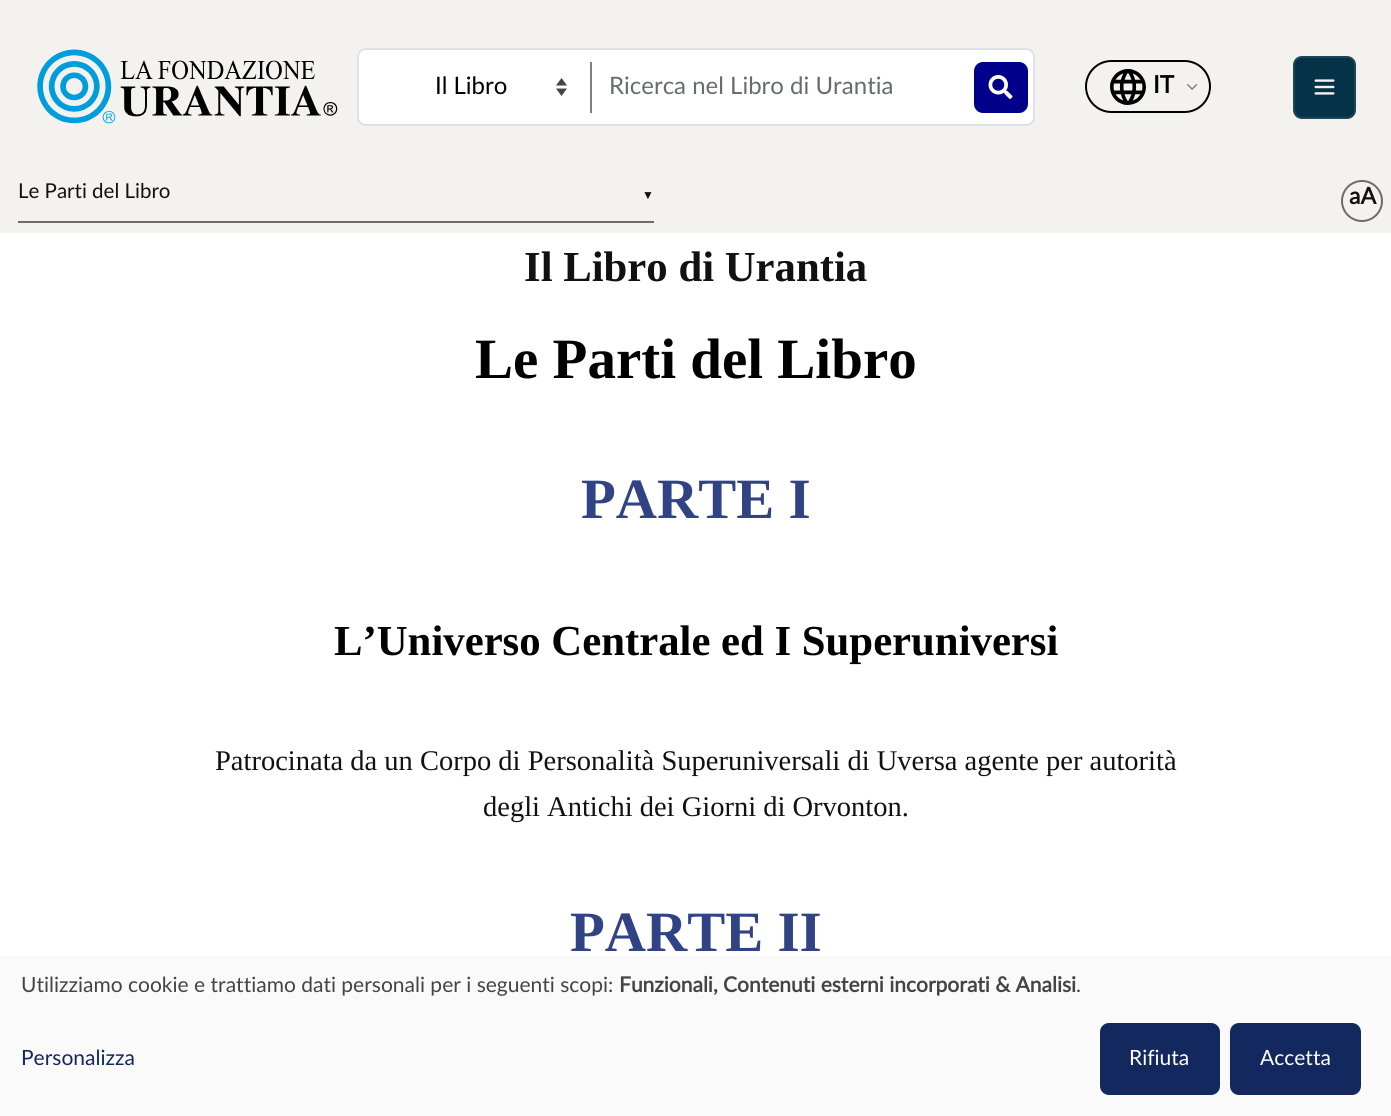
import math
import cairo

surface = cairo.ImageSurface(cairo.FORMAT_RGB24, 1391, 1116)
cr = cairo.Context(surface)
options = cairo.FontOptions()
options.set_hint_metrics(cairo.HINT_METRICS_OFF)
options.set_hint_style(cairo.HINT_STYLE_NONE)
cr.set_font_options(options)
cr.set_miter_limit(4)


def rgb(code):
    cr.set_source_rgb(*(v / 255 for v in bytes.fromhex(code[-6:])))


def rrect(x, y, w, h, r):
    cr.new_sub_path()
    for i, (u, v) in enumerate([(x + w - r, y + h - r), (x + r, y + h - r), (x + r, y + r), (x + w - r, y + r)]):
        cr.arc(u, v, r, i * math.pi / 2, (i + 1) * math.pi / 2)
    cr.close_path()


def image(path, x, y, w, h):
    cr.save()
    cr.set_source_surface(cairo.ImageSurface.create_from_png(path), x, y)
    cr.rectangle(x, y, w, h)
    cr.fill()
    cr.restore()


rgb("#ffffff")
cr.paint()
rgb("#f4f2ee")
cr.rectangle(0, 0, 1391, 233)
cr.fill()
image("img/1.png", 37, 49, 301, 75)
rgb("#ffffff")
rrect(358, 49, 676, 76, 8)
cr.fill_preserve()
rgb("#dee2e6")
cr.stroke()
rgb("#444444")
cr.new_path()
cr.move_to(556, 85.5)
cr.line_to(561.5, 78)
cr.line_to(567, 85.5)
cr.close_path()
cr.move_to(567, 88.5)
cr.line_to(561.5, 96)
cr.line_to(556, 88.5)
cr.close_path()
cr.fill()
rgb("#808080")
cr.rectangle(590, 62, 2, 51)
cr.fill()
rgb("#00008b")
rrect(974, 62, 54, 51, 9)
cr.fill()
image("img/2.png", 988, 75, 25, 24)
rrect(1086, 61, 124, 51, 25.5)
rgb("#000000")
cr.stroke()
image("img/3.png", 1110, 69, 36, 36)
image("img/4.png", 1186, 84, 12, 6)
rgb("#063248")
rrect(1293, 56, 63, 63, 9)
cr.fill()
rrect(1294, 57, 61, 61, 8)
cr.set_source_rgba(1, 1, 1, 0.1)
cr.stroke()
image("img/5.png", 1314, 79, 21, 16)
rgb("#6e6c6a")
cr.rectangle(18, 221, 636, 2)
cr.fill()
cr.arc(1362, 201, 20, 0, 2 * math.pi)
cr.stroke()
rgb("#fafafa")
cr.rectangle(0, 956, 1391, 160)
cr.fill()
rgb("#12285f")
rrect(1102.5, 1025.5, 115, 67, 6.5)
cr.fill_preserve()
cr.set_line_width(5)
cr.stroke()
rrect(1232.5, 1025.5, 126, 67, 6.5)
cr.fill_preserve()
cr.stroke()
cr.select_font_face("Lato")
cr.set_font_size(24)
rgb("#000000")
cr.move_to(435, 94)
cr.show_text("Il Libro")
rgb("#676b70")
cr.move_to(609, 94)
cr.show_text("Ricerca nel Libro di Urantia")
cr.select_font_face("Lato", cairo.FONT_SLANT_NORMAL, cairo.FONT_WEIGHT_BOLD)
rgb("#000000")
cr.move_to(1153, 93)
cr.show_text("IT")
cr.select_font_face("Lato")
cr.set_font_size(20.5)
rgb("#111111")
cr.move_to(18, 198)
cr.show_text("Le Parti del Libro")
cr.select_font_face("Liberation Serif")
cr.set_font_size(12)
cr.move_to(642, 199)
cr.show_text("▼")
cr.select_font_face("Lato", cairo.FONT_SLANT_NORMAL, cairo.FONT_WEIGHT_BOLD)
cr.set_font_size(23)
cr.move_to(1349, 204)
cr.show_text("aA")
cr.select_font_face("Liberation Serif", cairo.FONT_SLANT_NORMAL, cairo.FONT_WEIGHT_BOLD)
cr.set_font_size(42.75)
cr.move_to(524, 281)
cr.show_text("Il Libro di Urantia")
cr.set_font_size(57)
rgb("#000000")
cr.move_to(475, 378)
cr.show_text("Le Parti del Libro")
rgb("#304384")
cr.move_to(581, 518)
cr.show_text("PARTE I")
cr.set_font_size(42.75)
rgb("#000000")
cr.move_to(334, 655)
cr.show_text("L’Universo Centrale ed I Superuniversi")
cr.select_font_face("Liberation Serif")
cr.set_font_size(28.5)
rgb("#111111")
cr.move_to(215, 770)
cr.show_text("Patrocinata da un Corpo di Personalità Superuniversali di Uversa agente per autorità")
cr.move_to(483, 816)
cr.show_text("degli Antichi dei Giorni di Orvonton.")
cr.select_font_face("Liberation Serif", cairo.FONT_SLANT_NORMAL, cairo.FONT_WEIGHT_BOLD)
cr.set_font_size(57)
rgb("#304384")
cr.move_to(570, 951)
cr.show_text("PARTE II")
cr.select_font_face("Lato")
cr.set_font_size(21)
rgb("#444444")
cr.move_to(21, 992)
cr.show_text("Utilizziamo cookie e trattiamo dati personali per i seguenti scopi:")
cr.select_font_face("Lato", cairo.FONT_SLANT_NORMAL, cairo.FONT_WEIGHT_BOLD)
cr.move_to(619, 992)
cr.show_text("Funzionali, Contenuti esterni incorporati & Analisi")
cr.select_font_face("Lato")
cr.move_to(1076, 992)
cr.show_text(".")
rgb("#12285f")
cr.move_to(21, 1065)
cr.show_text("Personalizza")
rgb("#ffffff")
cr.move_to(1129, 1065)
cr.show_text("Rifiuta")
cr.move_to(1260, 1065)
cr.show_text("Accetta")
surface.write_to_png("page.png")
